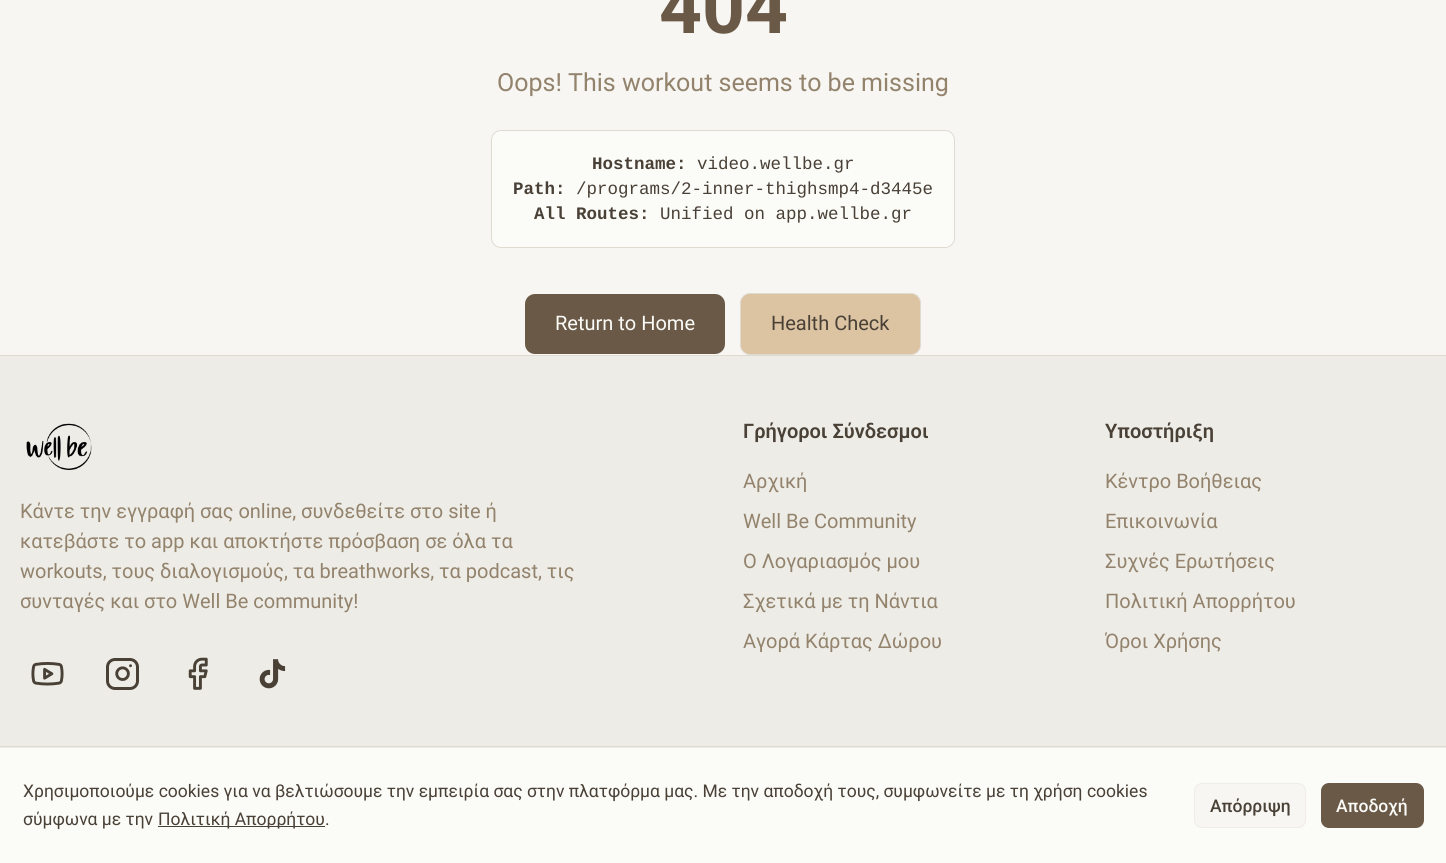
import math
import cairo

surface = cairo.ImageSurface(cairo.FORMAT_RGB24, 1446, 863)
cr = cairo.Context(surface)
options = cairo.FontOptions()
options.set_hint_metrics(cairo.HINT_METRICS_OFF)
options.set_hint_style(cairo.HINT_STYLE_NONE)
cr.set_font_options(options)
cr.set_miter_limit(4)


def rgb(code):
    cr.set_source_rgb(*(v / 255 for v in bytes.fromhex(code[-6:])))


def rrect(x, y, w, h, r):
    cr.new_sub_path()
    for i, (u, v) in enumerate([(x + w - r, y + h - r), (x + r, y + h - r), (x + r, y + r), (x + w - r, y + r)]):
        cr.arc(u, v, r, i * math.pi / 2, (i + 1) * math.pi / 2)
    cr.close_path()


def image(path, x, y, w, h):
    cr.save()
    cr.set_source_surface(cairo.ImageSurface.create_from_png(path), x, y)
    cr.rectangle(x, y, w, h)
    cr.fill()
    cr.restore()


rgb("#f7f6f2")
cr.paint()
rgb("#fbfbf8")
rrect(491.5, 130.5, 463, 117, 9.5)
cr.fill_preserve()
rgb("#e0dbd1")
cr.set_line_width(1)
cr.stroke()
rgb("#6b5947")
rrect(525, 294, 200, 60, 10)
cr.fill()
rgb("#dcc4a3")
rrect(740.5, 293.5, 180, 61, 9.5)
cr.fill_preserve()
rgb("#e0dbd1")
cr.stroke()
rgb("#edece7")
cr.rectangle(0, 356, 1446, 392)
cr.fill()
rgb("#e0dbd1")
cr.rectangle(0, 355, 1446, 1)
cr.fill()
image("img/1.png", 26, 423, 66, 47)
image("img/2.png", 31, 662, 33, 24)
image("img/3.png", 106, 658, 33, 32)
image("img/4.png", 188, 657, 20, 33)
image("img/5.png", 259, 659, 27, 30)
for x, y, w, h, color in [
    (0, 748, 1446, 115, "#fbfbf8"),
    (0, 746, 1446, 1, "#e0dbd1"),
    (158, 826, 167, 1, "#494036"),
]:
    rgb(color)
    cr.rectangle(x, y, w, h)
    cr.fill()
rgb("#f7f6f2")
rrect(1194.5, 783.5, 111, 44, 7.5)
cr.fill_preserve()
rgb("#f0ece6")
cr.stroke()
rgb("#6b5947")
rrect(1321, 783, 103, 45, 8)
cr.fill()
cr.select_font_face("Roboto", cairo.FONT_SLANT_NORMAL, cairo.FONT_WEIGHT_BOLD)
cr.set_font_size(75)
cr.move_to(659, 33)
cr.show_text("404")
cr.select_font_face("Roboto")
cr.set_font_size(25)
rgb("#93836c")
cr.move_to(497, 91)
cr.show_text("Oops! This workout seems to be missing")
cr.select_font_face("Liberation Mono", cairo.FONT_SLANT_NORMAL, cairo.FONT_WEIGHT_BOLD)
cr.set_font_size(17.5)
rgb("#494036")
cr.move_to(592, 169)
cr.show_text("Hostname:")
cr.select_font_face("Liberation Mono")
cr.move_to(697, 169)
cr.show_text("video.wellbe.gr")
cr.select_font_face("Liberation Mono", cairo.FONT_SLANT_NORMAL, cairo.FONT_WEIGHT_BOLD)
cr.move_to(513, 194)
cr.show_text("Path:")
cr.select_font_face("Liberation Mono")
cr.move_to(576, 194)
cr.show_text("/programs/2-inner-thighsmp4-d3445e")
cr.select_font_face("Liberation Mono", cairo.FONT_SLANT_NORMAL, cairo.FONT_WEIGHT_BOLD)
cr.move_to(534, 219)
cr.show_text("All Routes:")
cr.select_font_face("Liberation Mono")
cr.move_to(660, 219)
cr.show_text("Unified on app.wellbe.gr")
cr.select_font_face("Roboto")
cr.set_font_size(20)
rgb("#fbfbf8")
cr.move_to(555, 330)
cr.show_text("Return to Home")
rgb("#494036")
cr.move_to(771, 330)
cr.show_text("Health Check")
rgb("#93836c")
for x, y, s in [
    (20, 518, "Κάντε την εγγραφή σας online, συνδεθείτε στο site ή"),
    (20, 548, "κατεβάστε το app και αποκτήστε πρόσβαση σε όλα τα"),
    (20, 578, "workouts, τους διαλογισμούς, τα breathworks, τα podcast, τις"),
    (20, 608, "συνταγές και στο Well Be community!"),
]:
    cr.move_to(x, y)
    cr.show_text(s)
cr.select_font_face("Roboto SemiBold")
rgb("#494036")
cr.move_to(743, 438)
cr.show_text("Γρήγοροι Σύνδεσμοι")
cr.select_font_face("Roboto")
rgb("#93836c")
for x, y, s in [
    (743, 488, "Αρχική"),
    (743, 528, "Well Be Community"),
    (743, 568, "Ο Λογαριασμός μου"),
    (743, 608, "Σχετικά με τη Νάντια"),
    (743, 648, "Αγορά Κάρτας Δώρου"),
]:
    cr.move_to(x, y)
    cr.show_text(s)
cr.select_font_face("Roboto SemiBold")
rgb("#494036")
cr.move_to(1105, 438)
cr.show_text("Υποστήριξη")
cr.select_font_face("Roboto")
rgb("#93836c")
for x, y, s in [
    (1105, 488, "Κέντρο Βοήθειας"),
    (1105, 528, "Επικοινωνία"),
    (1105, 568, "Συχνές Ερωτήσεις"),
    (1105, 608, "Πολιτική Απορρήτου"),
    (1105, 648, "Όροι Χρήσης"),
]:
    cr.move_to(x, y)
    cr.show_text(s)
cr.set_font_size(17.5)
rgb("#494036")
for x, y, s in [
    (23, 797, "Χρησιμοποιούμε cookies για να βελτιώσουμε την εμπειρία σας στην πλατφόρμα μας. Με την αποδοχή τους, συμφωνείτε με τη χρήση cookies"),
    (23, 825, "σύμφωνα με την"),
    (158, 825, "Πολιτική Απορρήτου."),
]:
    cr.move_to(x, y)
    cr.show_text(s)
cr.select_font_face("Roboto Medium")
cr.move_to(1210, 812)
cr.show_text("Απόρριψη")
rgb("#fbfbf8")
cr.move_to(1336, 812)
cr.show_text("Αποδοχή")
surface.write_to_png("page.png")
